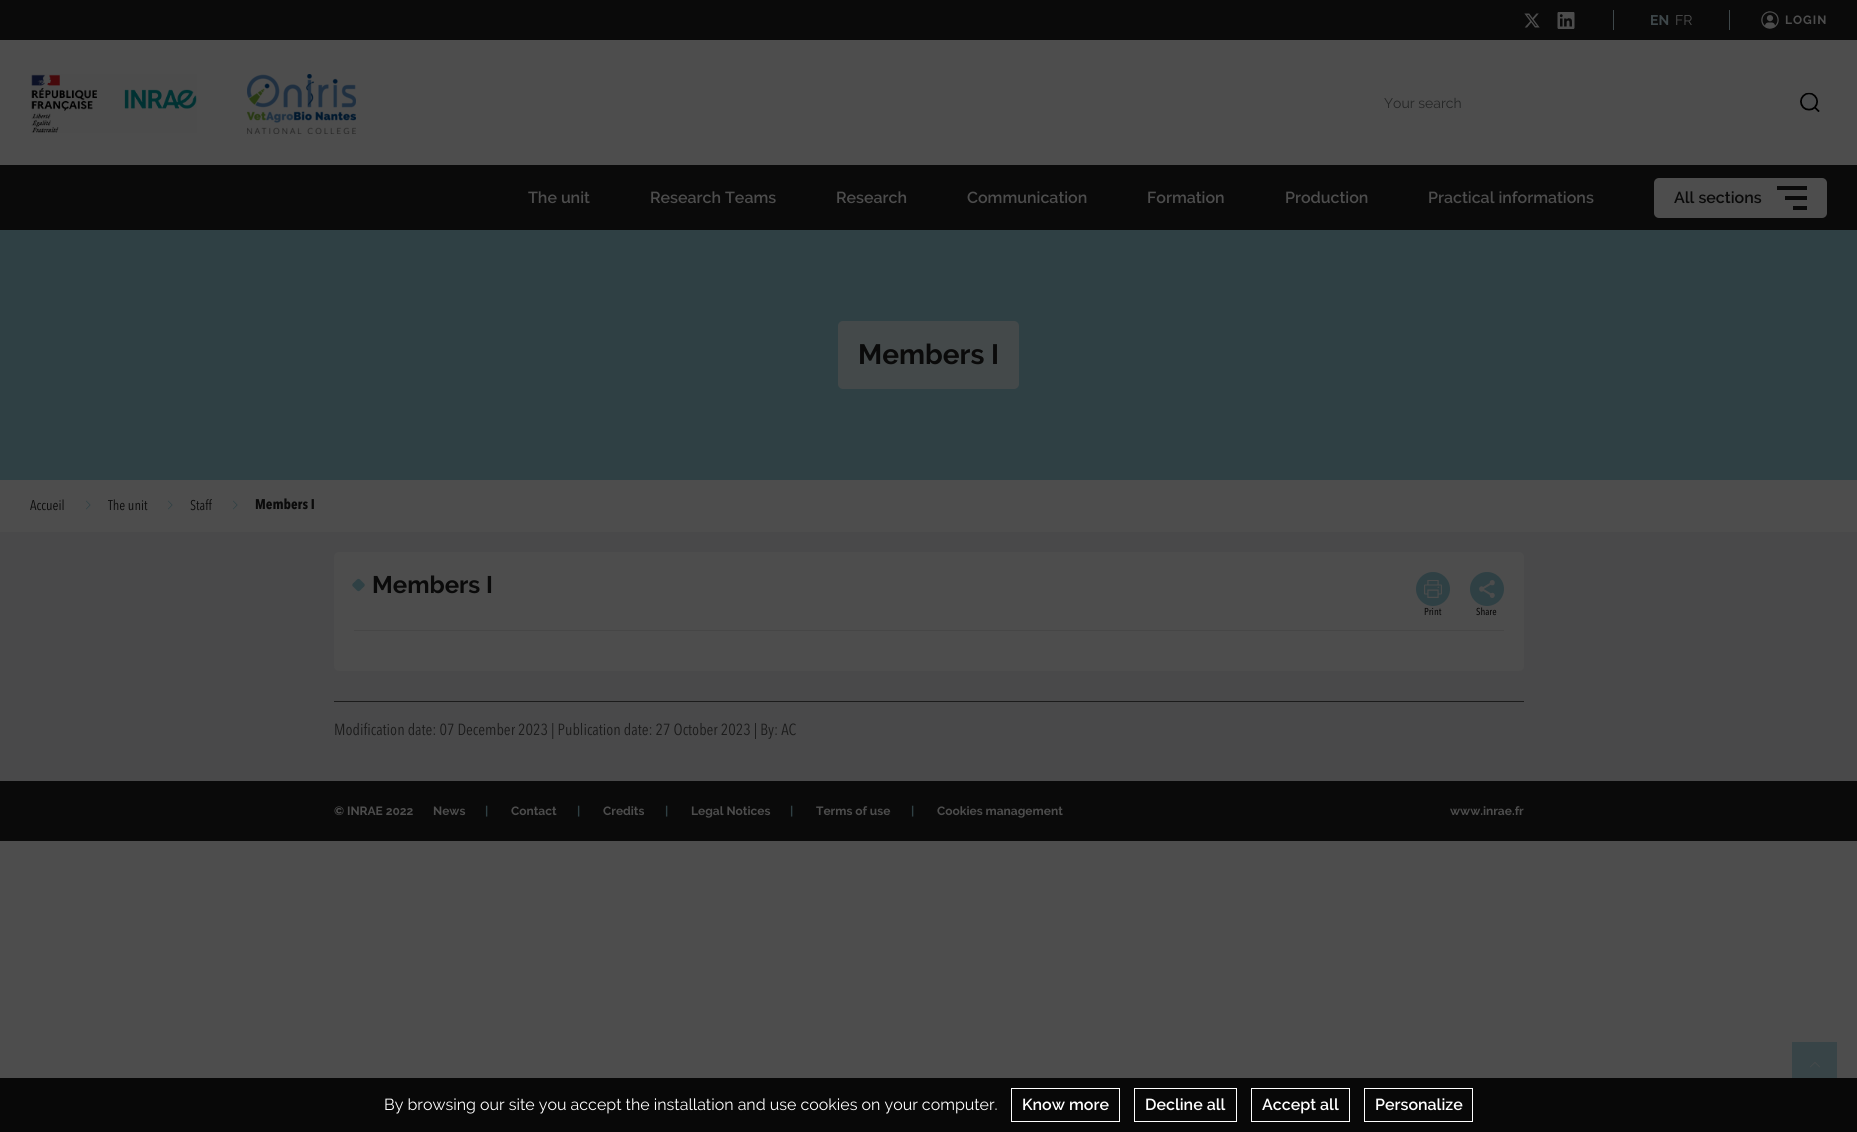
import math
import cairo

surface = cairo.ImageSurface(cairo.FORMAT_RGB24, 1857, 1132)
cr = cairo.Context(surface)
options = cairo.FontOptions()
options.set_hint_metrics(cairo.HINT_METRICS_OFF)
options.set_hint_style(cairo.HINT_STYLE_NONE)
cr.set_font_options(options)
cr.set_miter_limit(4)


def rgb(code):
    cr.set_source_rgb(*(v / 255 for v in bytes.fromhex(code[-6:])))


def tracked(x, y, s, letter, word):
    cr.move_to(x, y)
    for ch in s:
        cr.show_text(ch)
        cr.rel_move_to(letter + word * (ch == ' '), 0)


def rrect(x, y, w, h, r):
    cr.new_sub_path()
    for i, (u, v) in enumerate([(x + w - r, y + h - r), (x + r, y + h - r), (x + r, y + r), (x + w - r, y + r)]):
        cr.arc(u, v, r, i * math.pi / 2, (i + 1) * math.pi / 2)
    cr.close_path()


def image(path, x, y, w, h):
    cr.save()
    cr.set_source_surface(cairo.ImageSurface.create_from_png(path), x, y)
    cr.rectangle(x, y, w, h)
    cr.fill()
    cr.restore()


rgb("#4d4d4d")
cr.paint()
rgb("#080808")
cr.rectangle(0, 1078, 1857, 54)
cr.fill()
rgb("#0a0a0a")
cr.rectangle(0, 0, 1857, 40)
cr.fill()
image("img/1.png", 1524, 13, 16, 15)
image("img/2.png", 1557, 12, 18, 17)
rgb("#3e474a")
cr.rectangle(1613, 10, 1, 20)
cr.fill()
cr.rectangle(1729, 10, 1, 20)
cr.fill()
image("img/3.png", 1761, 11, 18, 18)
image("img/4.png", 31, 74, 166, 59)
image("img/5.png", 247, 74, 109, 60)
image("img/6.png", 1800, 92, 20, 20)
rgb("#0a0a0a")
cr.rectangle(0, 165, 1857, 65)
cr.fill()
rgb("#4d4d4d")
rrect(1654, 178, 173, 40, 5)
cr.fill()
for x, y, w, h, color in [
    (1777, 186, 30, 4, "#0a0a0a"),
    (1785, 196, 22, 4, "#0a0a0a"),
    (1793, 206, 14, 4, "#0a0a0a"),
    (0, 230, 1857, 250, "#2f4044"),
]:
    rgb(color)
    cr.rectangle(x, y, w, h)
    cr.fill()
rgb("#44494a")
rrect(838, 321, 181, 68, 5)
cr.fill()
image("img/7.png", 86, 500, 5, 10)
image("img/7.png", 168, 500, 5, 10)
image("img/7.png", 233, 500, 5, 10)
rgb("#49494a")
cr.rectangle(0, 532, 1857, 249)
cr.fill()
rgb("#4d4d4d")
rrect(334, 552, 1190, 119, 5)
cr.fill()
rgb("#464646")
cr.rectangle(354, 630, 1150, 1)
cr.fill()
rgb("#2f4044")
cr.new_path()
cr.move_to(360, 579.5)
cr.line_to(364.5, 584)
cr.curve_to(365.5, 586, 363, 587.5, 362, 588.5)
cr.curve_to(361, 589.5, 359, 592.5, 357, 590.5)
cr.line_to(352.5, 586)
cr.curve_to(351.5, 584, 354, 582.5, 355, 581.5)
cr.curve_to(356, 580.5, 358, 577.5, 360, 579.5)
cr.close_path()
cr.fill()
cr.arc(1433, 589, 17, 0, 2 * math.pi)
cr.fill()
image("img/8.png", 1424, 580, 18, 18)
cr.arc(1487, 589, 17, 0, 2 * math.pi)
cr.fill()
image("img/9.png", 1479, 580, 16, 18)
for x, y, w, h, color in [
    (334, 701, 1190, 1, "#1b1b1b"),
    (0, 781, 1857, 60, "#0a0a0a"),
    (1792, 1042, 45, 36, "#384447"),
]:
    rgb(color)
    cr.rectangle(x, y, w, h)
    cr.fill()
image("img/10.png", 1810, 1062, 10, 6)
cr.rectangle(1011.5, 1088.5, 108, 33)
rgb("#ffffff")
cr.set_line_width(1)
cr.stroke()
cr.rectangle(1134.5, 1088.5, 102, 33)
cr.stroke()
cr.rectangle(1251.5, 1088.5, 98, 33)
cr.stroke()
cr.rectangle(1364.5, 1088.5, 108, 33)
cr.stroke()
cr.select_font_face("Raleway", cairo.FONT_SLANT_NORMAL, cairo.FONT_WEIGHT_BOLD)
cr.set_font_size(14)
rgb("#3e474a")
cr.move_to(1650, 25)
cr.show_text("EN")
cr.select_font_face("Raleway")
rgb("#4d4d4d")
cr.move_to(1675, 25)
cr.show_text("FR")
cr.select_font_face("Raleway", cairo.FONT_SLANT_NORMAL, cairo.FONT_WEIGHT_BOLD)
cr.set_font_size(12)
tracked(1785, 24, "LOGIN", 1, 0)
cr.select_font_face("Raleway")
cr.set_font_size(14)
rgb("#242525")
cr.move_to(1384, 108)
cr.show_text("Your search")
cr.select_font_face("Raleway SemiBold")
cr.set_font_size(16)
rgb("#4d4d4d")
for x, y, s in [
    (528, 203, "The unit"),
    (650, 203, "Research Teams"),
    (836, 203, "Research"),
    (967, 203, "Communication"),
    (1147, 203, "Formation"),
    (1285, 203, "Production"),
    (1428, 203, "Practical informations"),
]:
    cr.move_to(x, y)
    cr.show_text(s)
rgb("#0a0a0a")
cr.move_to(1674, 203)
cr.show_text("All sections")
cr.select_font_face("Raleway", cairo.FONT_SLANT_NORMAL, cairo.FONT_WEIGHT_BOLD)
cr.set_font_size(28)
cr.move_to(858, 364)
cr.show_text("Members I")
cr.select_font_face("Avenir Next")
cr.set_font_size(14)
for x, y, s in [
    (30, 510, "Accueil"),
    (108, 510, "The unit"),
    (190, 510, "Staff"),
]:
    cr.move_to(x, y)
    cr.show_text(s)
cr.select_font_face("Avenir Next", cairo.FONT_SLANT_NORMAL, cairo.FONT_WEIGHT_BOLD)
cr.move_to(255, 509)
cr.show_text("Members I")
cr.select_font_face("Raleway", cairo.FONT_SLANT_NORMAL, cairo.FONT_WEIGHT_BOLD)
cr.set_font_size(24)
cr.move_to(372, 593)
cr.show_text("Members I")
cr.select_font_face("Avenir Next Medium")
cr.set_font_size(10)
cr.move_to(1424, 615)
cr.show_text("Print")
cr.move_to(1476, 615)
cr.show_text("Share")
cr.select_font_face("Avenir Next")
cr.set_font_size(16)
rgb("#1b1b1b")
cr.move_to(334, 735)
cr.show_text("Modification date: 07 December 2023 | Publication date: 27 October 2023 | By: AC")
cr.select_font_face("Raleway", cairo.FONT_SLANT_NORMAL, cairo.FONT_WEIGHT_BOLD)
cr.set_font_size(12)
rgb("#4d4d4d")
cr.move_to(334, 815)
cr.show_text("© INRAE 2022")
cr.move_to(433, 815)
cr.show_text("News")
rgb("#2f4044")
cr.move_to(485, 815)
cr.show_text("|")
rgb("#4d4d4d")
cr.move_to(511, 815)
cr.show_text("Contact")
rgb("#2f4044")
cr.move_to(577, 815)
cr.show_text("|")
rgb("#4d4d4d")
cr.move_to(603, 815)
cr.show_text("Credits")
rgb("#2f4044")
cr.move_to(665, 815)
cr.show_text("|")
rgb("#4d4d4d")
cr.move_to(691, 815)
cr.show_text("Legal Notices")
rgb("#2f4044")
cr.move_to(790, 815)
cr.show_text("|")
rgb("#4d4d4d")
cr.move_to(816, 815)
cr.show_text("Terms of use")
rgb("#2f4044")
cr.move_to(911, 815)
cr.show_text("|")
rgb("#4d4d4d")
cr.move_to(937, 815)
cr.show_text("Cookies management")
cr.move_to(1450, 815)
cr.show_text("www.inrae.fr")
cr.select_font_face("Raleway")
cr.set_font_size(16)
rgb("#ffffff")
cr.move_to(384, 1110)
cr.show_text("By browsing our site you accept the installation and use cookies on your computer.")
cr.select_font_face("Raleway SemiBold")
for x, y, s in [
    (1022, 1110, "Know more"),
    (1145, 1110, "Decline all"),
    (1262, 1110, "Accept all"),
    (1375, 1110, "Personalize"),
]:
    cr.move_to(x, y)
    cr.show_text(s)
surface.write_to_png("page.png")
